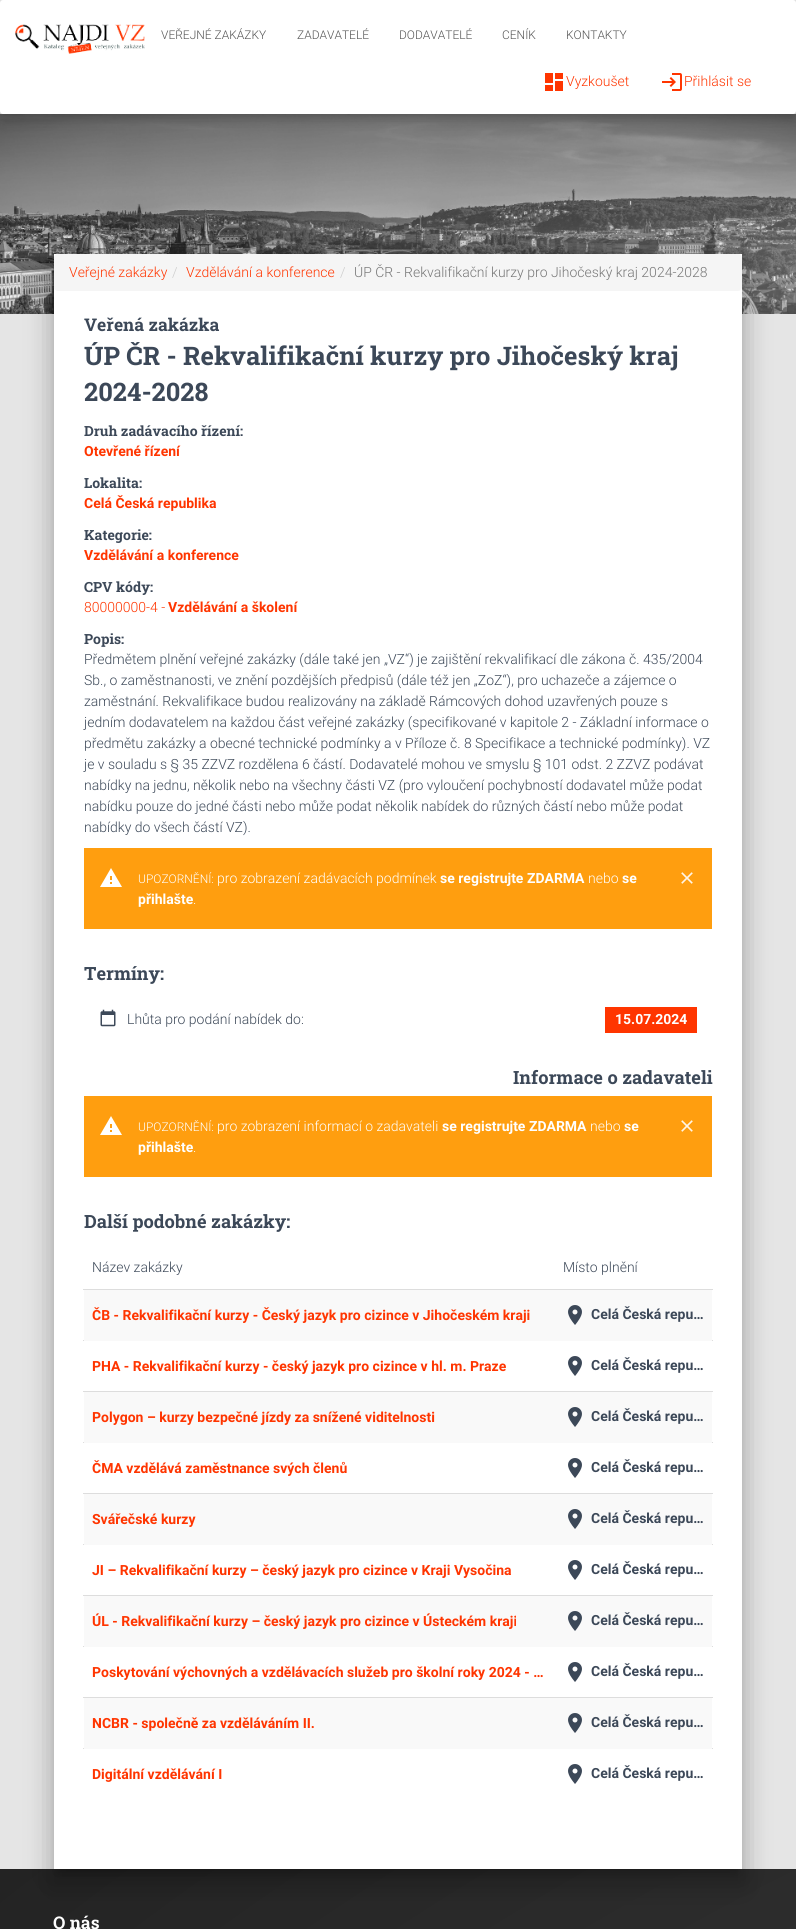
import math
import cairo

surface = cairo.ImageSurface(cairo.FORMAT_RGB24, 796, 1929)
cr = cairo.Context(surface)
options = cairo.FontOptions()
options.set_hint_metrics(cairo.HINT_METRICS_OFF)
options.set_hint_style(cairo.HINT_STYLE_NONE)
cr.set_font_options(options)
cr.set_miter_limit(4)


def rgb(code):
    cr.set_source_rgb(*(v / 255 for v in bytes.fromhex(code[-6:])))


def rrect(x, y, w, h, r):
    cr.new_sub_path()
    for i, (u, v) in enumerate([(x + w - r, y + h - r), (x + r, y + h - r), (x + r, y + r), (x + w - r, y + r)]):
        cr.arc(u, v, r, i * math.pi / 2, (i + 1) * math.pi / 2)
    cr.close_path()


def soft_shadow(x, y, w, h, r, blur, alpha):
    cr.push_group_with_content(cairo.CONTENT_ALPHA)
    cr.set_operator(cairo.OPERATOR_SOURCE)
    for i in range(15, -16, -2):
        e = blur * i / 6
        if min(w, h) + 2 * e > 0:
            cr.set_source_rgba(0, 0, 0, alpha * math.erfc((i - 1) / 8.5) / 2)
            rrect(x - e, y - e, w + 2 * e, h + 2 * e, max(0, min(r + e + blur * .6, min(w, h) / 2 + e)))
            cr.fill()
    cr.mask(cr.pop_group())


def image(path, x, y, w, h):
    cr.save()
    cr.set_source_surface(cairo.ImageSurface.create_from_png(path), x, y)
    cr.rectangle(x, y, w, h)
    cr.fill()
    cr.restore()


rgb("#e5e5e5")
cr.paint()
image("img/4.png", 0, 114, 796, 200)
rgb("#000000")
soft_shadow(5, 12, 786, 104, 0, 5, 0.15)
soft_shadow(0, 4, 796, 114, 3, 9, 0.12)
rgb("#ffffff")
rrect(0, 0, 796, 114, 3)
cr.fill()
image("img/1.png", 15, 24, 130, 30)
image("img/2.png", 545, 73, 18, 18)
image("img/3.png", 662, 73, 20, 18)
gradient = cairo.RadialGradient(0, 0, 0, 0, 0, 1)
gradient.set_matrix(cairo.Matrix(1 / 3096, 0, 0, 1 / 2441, -1 * 2189 / 3096, -1 * 3595 / 2441))
gradient.add_color_stop_rgba(0, 0.345, 0.345, 0.345, 1)
gradient.add_color_stop_rgba(1, 0.137, 0.137, 0.137, 1)
cr.set_source(gradient)
cr.rectangle(0, 1869, 796, 60)
cr.fill()
rgb("#000000")
soft_shadow(59, 267, 678, 1605, 0, 5, 0.2)
soft_shadow(49, 255, 698, 1625, 0, 15, 0.12)
soft_shadow(52, 268, 692, 1619, 0, 12, 0.14)
rgb("#ffffff")
cr.rectangle(54, 254, 688, 1615)
cr.fill()
rgb("#f5f5f5")
rrect(54, 254, 688, 37, 4)
cr.fill()
rgb("#ff9e0f")
cr.rectangle(84, 848, 628, 81)
cr.fill()
image("img/5.png", 100, 868, 22, 19)
image("img/6.png", 681, 872, 12, 12)
image("img/7.png", 100, 1009, 16, 18)
rgb("#ff3500")
cr.rectangle(605, 1007, 92, 26)
cr.fill()
rgb("#ff9e0f")
cr.rectangle(84, 1096, 628, 81)
cr.fill()
image("img/5.png", 100, 1116, 22, 19)
image("img/6.png", 681, 1120, 12, 12)
rgb("#f9f9f9")
cr.rectangle(84, 1290, 628, 51)
cr.fill()
rgb("#dddddd")
cr.rectangle(83, 1289, 630, 1)
cr.fill()
image("img/8.png", 568, 1305, 14, 20)
cr.rectangle(83, 1340, 1, 1)
cr.fill()
cr.rectangle(712, 1340, 1, 1)
cr.fill()
image("img/9.png", 568, 1356, 14, 20)
rgb("#f9f9f9")
cr.rectangle(84, 1392, 628, 51)
cr.fill()
rgb("#dddddd")
cr.rectangle(83, 1391, 630, 1)
cr.fill()
image("img/8.png", 568, 1407, 14, 20)
cr.rectangle(83, 1442, 1, 1)
cr.fill()
cr.rectangle(712, 1442, 1, 1)
cr.fill()
image("img/9.png", 568, 1458, 14, 20)
rgb("#f9f9f9")
cr.rectangle(84, 1494, 628, 51)
cr.fill()
rgb("#dddddd")
cr.rectangle(83, 1493, 630, 1)
cr.fill()
image("img/8.png", 568, 1509, 14, 20)
cr.rectangle(83, 1544, 1, 1)
cr.fill()
cr.rectangle(712, 1544, 1, 1)
cr.fill()
image("img/9.png", 568, 1560, 14, 20)
rgb("#f9f9f9")
cr.rectangle(84, 1596, 628, 51)
cr.fill()
rgb("#dddddd")
cr.rectangle(83, 1595, 630, 1)
cr.fill()
image("img/8.png", 568, 1611, 14, 20)
cr.rectangle(83, 1646, 1, 1)
cr.fill()
cr.rectangle(712, 1646, 1, 1)
cr.fill()
image("img/9.png", 568, 1662, 14, 20)
rgb("#f9f9f9")
cr.rectangle(84, 1698, 628, 51)
cr.fill()
rgb("#dddddd")
cr.rectangle(83, 1697, 630, 1)
cr.fill()
image("img/8.png", 568, 1713, 14, 20)
cr.rectangle(83, 1748, 1, 1)
cr.fill()
cr.rectangle(712, 1748, 1, 1)
cr.fill()
image("img/9.png", 568, 1764, 14, 20)
cr.select_font_face("Roboto Light")
cr.set_font_size(12)
rgb("#555555")
for x, y, s in [
    (161, 39, "VEŘEJNÉ ZAKÁZKY"),
    (297, 39, "ZADAVATELÉ"),
    (399, 39, "DODAVATELÉ"),
    (502, 39, "CENÍK"),
    (566, 39, "KONTAKTY"),
]:
    cr.move_to(x, y)
    cr.show_text(s)
cr.set_font_size(14)
rgb("#ff3500")
for x, y, s in [
    (566, 86, "Vyzkoušet"),
    (684, 86, "Přihlásit se"),
    (69, 277, "Veřejné zakázky"),
]:
    cr.move_to(x, y)
    cr.show_text(s)
rgb("#cccccc")
cr.move_to(172, 277)
cr.show_text("/")
rgb("#ff3500")
cr.move_to(186, 277)
cr.show_text("Vzdělávání a konference")
rgb("#cccccc")
cr.move_to(340, 277)
cr.show_text("/")
rgb("#777777")
cr.move_to(354, 277)
cr.show_text("ÚP ČR - Rekvalifikační kurzy pro Jihočeský kraj 2024-2028")
cr.select_font_face("Roboto Slab", cairo.FONT_SLANT_NORMAL, cairo.FONT_WEIGHT_BOLD)
cr.set_font_size(17.5)
rgb("#3c4858")
cr.move_to(84, 331)
cr.show_text("Veřená zakázka")
cr.set_font_size(25.55)
cr.move_to(84, 365)
cr.show_text("ÚP ČR - Rekvalifikační kurzy pro Jihočeský kraj")
cr.move_to(84, 401)
cr.show_text("2024-2028")
cr.set_font_size(14)
cr.move_to(84, 436)
cr.show_text("Druh zadávacího řízení:")
cr.select_font_face("Roboto", cairo.FONT_SLANT_NORMAL, cairo.FONT_WEIGHT_BOLD)
rgb("#ff3500")
cr.move_to(84, 456)
cr.show_text("Otevřené řízení")
cr.select_font_face("Roboto Slab", cairo.FONT_SLANT_NORMAL, cairo.FONT_WEIGHT_BOLD)
rgb("#3c4858")
cr.move_to(84, 488)
cr.show_text("Lokalita:")
cr.select_font_face("Roboto", cairo.FONT_SLANT_NORMAL, cairo.FONT_WEIGHT_BOLD)
rgb("#ff3500")
cr.move_to(84, 508)
cr.show_text("Celá Česká republika")
cr.select_font_face("Roboto Slab", cairo.FONT_SLANT_NORMAL, cairo.FONT_WEIGHT_BOLD)
rgb("#3c4858")
cr.move_to(84, 540)
cr.show_text("Kategorie:")
cr.select_font_face("Roboto", cairo.FONT_SLANT_NORMAL, cairo.FONT_WEIGHT_BOLD)
rgb("#ff3500")
cr.move_to(84, 560)
cr.show_text("Vzdělávání a konference")
cr.select_font_face("Roboto Slab", cairo.FONT_SLANT_NORMAL, cairo.FONT_WEIGHT_BOLD)
rgb("#3c4858")
cr.move_to(84, 592)
cr.show_text("CPV kódy:")
cr.select_font_face("Roboto Light")
rgb("#ff3500")
cr.move_to(84, 612)
cr.show_text("80000000-4 -")
cr.select_font_face("Roboto", cairo.FONT_SLANT_NORMAL, cairo.FONT_WEIGHT_BOLD)
cr.move_to(168, 612)
cr.show_text("Vzdělávání a školení")
cr.select_font_face("Roboto Slab", cairo.FONT_SLANT_NORMAL, cairo.FONT_WEIGHT_BOLD)
rgb("#3c4858")
cr.move_to(84, 644)
cr.show_text("Popis:")
cr.select_font_face("Roboto Light")
for x, y, s in [
    (84, 664, "Předmětem plnění veřejné zakázky (dále také jen „VZ“) je zajištění rekvalifikací dle zákona č. 435/2004"),
    (84, 685, "Sb., o zaměstnanosti, ve znění pozdějších předpisů (dále též jen „ZoZ“), pro uchazeče a zájemce o"),
    (84, 706, "zaměstnání. Rekvalifikace budou realizovány na základě Rámcových dohod uzavřených pouze s"),
    (84, 727, "jedním dodavatelem na každou část veřejné zakázky (specifikované v kapitole 2 - Základní informace o"),
    (84, 748, "předmětu zakázky a obecné technické podmínky a v Příloze č. 8 Specifikace a technické podmínky). VZ"),
    (84, 769, "je v souladu s § 35 ZZVZ rozdělena 6 částí. Dodavatelé mohou ve smyslu § 101 odst. 2 ZZVZ podávat"),
    (84, 790, "nabídky na jednu, několik nebo na všechny části VZ (pro vyloučení pochybností dodavatel může podat"),
    (84, 811, "nabídku pouze do jedné části nebo může podat několik nabídek do různých částí nebo může podat"),
    (84, 832, "nabídky do všech částí VZ)."),
]:
    cr.move_to(x, y)
    cr.show_text(s)
cr.set_font_size(12)
rgb("#ffffff")
cr.move_to(138, 883)
cr.show_text("UPOZORNĚNÍ:")
cr.set_font_size(14)
cr.move_to(217, 883)
cr.show_text("pro zobrazení zadávacích podmínek")
cr.select_font_face("Roboto", cairo.FONT_SLANT_NORMAL, cairo.FONT_WEIGHT_BOLD)
cr.move_to(440, 883)
cr.show_text("se registrujte ZDARMA")
cr.select_font_face("Roboto Light")
cr.move_to(588, 883)
cr.show_text("nebo")
cr.select_font_face("Roboto", cairo.FONT_SLANT_NORMAL, cairo.FONT_WEIGHT_BOLD)
cr.move_to(622, 883)
cr.show_text("se")
cr.move_to(138, 904)
cr.show_text("přihlašte")
cr.select_font_face("Roboto Light")
cr.move_to(193, 904)
cr.show_text(".")
cr.select_font_face("Roboto Slab", cairo.FONT_SLANT_NORMAL, cairo.FONT_WEIGHT_BOLD)
cr.set_font_size(18.25)
rgb("#3c4858")
cr.move_to(84, 980)
cr.show_text("Termíny:")
cr.select_font_face("Roboto Light")
cr.set_font_size(14)
cr.move_to(127, 1024)
cr.show_text("Lhůta pro podání nabídek do:")
cr.select_font_face("Roboto", cairo.FONT_SLANT_NORMAL, cairo.FONT_WEIGHT_BOLD)
rgb("#ffffff")
cr.move_to(615, 1024)
cr.show_text("15.07.2024")
cr.select_font_face("Roboto Slab", cairo.FONT_SLANT_NORMAL, cairo.FONT_WEIGHT_BOLD)
cr.set_font_size(18.25)
rgb("#3c4858")
cr.move_to(513, 1084)
cr.show_text("Informace o zadavateli")
cr.select_font_face("Roboto Light")
cr.set_font_size(12)
rgb("#ffffff")
cr.move_to(138, 1131)
cr.show_text("UPOZORNĚNÍ:")
cr.set_font_size(14)
cr.move_to(217, 1131)
cr.show_text("pro zobrazení informací o zadavateli")
cr.select_font_face("Roboto", cairo.FONT_SLANT_NORMAL, cairo.FONT_WEIGHT_BOLD)
cr.move_to(442, 1131)
cr.show_text("se registrujte ZDARMA")
cr.select_font_face("Roboto Light")
cr.move_to(590, 1131)
cr.show_text("nebo")
cr.select_font_face("Roboto", cairo.FONT_SLANT_NORMAL, cairo.FONT_WEIGHT_BOLD)
cr.move_to(624, 1131)
cr.show_text("se")
cr.move_to(138, 1152)
cr.show_text("přihlašte")
cr.select_font_face("Roboto Light")
cr.move_to(193, 1152)
cr.show_text(".")
cr.select_font_face("Roboto Slab", cairo.FONT_SLANT_NORMAL, cairo.FONT_WEIGHT_BOLD)
cr.set_font_size(18.25)
rgb("#3c4858")
cr.move_to(84, 1228)
cr.show_text("Další podobné zakázky:")
cr.select_font_face("Roboto Light")
cr.set_font_size(14)
cr.move_to(92, 1272)
cr.show_text("Název zakázky")
cr.move_to(563, 1272)
cr.show_text("Místo plnění")
cr.select_font_face("Roboto", cairo.FONT_SLANT_NORMAL, cairo.FONT_WEIGHT_BOLD)
rgb("#ff3500")
cr.move_to(92, 1320)
cr.show_text("ČB - Rekvalifikační kurzy - Český jazyk pro cizince v Jihočeském kraji")
rgb("#3c4858")
cr.move_to(591, 1319)
cr.show_text("Celá Česká repu…")
rgb("#ff3500")
cr.move_to(92, 1371)
cr.show_text("PHA - Rekvalifikační kurzy - český jazyk pro cizince v hl. m. Praze")
rgb("#3c4858")
cr.move_to(591, 1370)
cr.show_text("Celá Česká repu…")
rgb("#ff3500")
cr.move_to(92, 1422)
cr.show_text("Polygon – kurzy bezpečné jízdy za snížené viditelnosti")
rgb("#3c4858")
cr.move_to(591, 1421)
cr.show_text("Celá Česká repu…")
rgb("#ff3500")
cr.move_to(92, 1473)
cr.show_text("ČMA vzdělává zaměstnance svých členů")
rgb("#3c4858")
cr.move_to(591, 1472)
cr.show_text("Celá Česká repu…")
rgb("#ff3500")
cr.move_to(92, 1524)
cr.show_text("Svářečské kurzy")
rgb("#3c4858")
cr.move_to(591, 1523)
cr.show_text("Celá Česká repu…")
rgb("#ff3500")
cr.move_to(92, 1575)
cr.show_text("JI – Rekvalifikační kurzy – český jazyk pro cizince v Kraji Vysočina")
rgb("#3c4858")
cr.move_to(591, 1574)
cr.show_text("Celá Česká repu…")
rgb("#ff3500")
cr.move_to(92, 1626)
cr.show_text("ÚL - Rekvalifikační kurzy – český jazyk pro cizince v Ústeckém kraji")
rgb("#3c4858")
cr.move_to(591, 1625)
cr.show_text("Celá Česká repu…")
rgb("#ff3500")
cr.move_to(92, 1677)
cr.show_text("Poskytování výchovných a vzdělávacích služeb pro školní roky 2024 - …")
rgb("#3c4858")
cr.move_to(591, 1676)
cr.show_text("Celá Česká repu…")
rgb("#ff3500")
cr.move_to(92, 1728)
cr.show_text("NCBR - společně za vzděláváním II.")
rgb("#3c4858")
cr.move_to(591, 1727)
cr.show_text("Celá Česká repu…")
rgb("#ff3500")
cr.move_to(92, 1779)
cr.show_text("Digitální vzdělávání I")
rgb("#3c4858")
cr.move_to(591, 1778)
cr.show_text("Celá Česká repu…")
cr.select_font_face("Roboto Slab", cairo.FONT_SLANT_NORMAL, cairo.FONT_WEIGHT_BOLD)
cr.set_font_size(17.5)
rgb("#ffffff")
cr.move_to(53, 1929)
cr.show_text("O nás")
surface.write_to_png("page.png")
